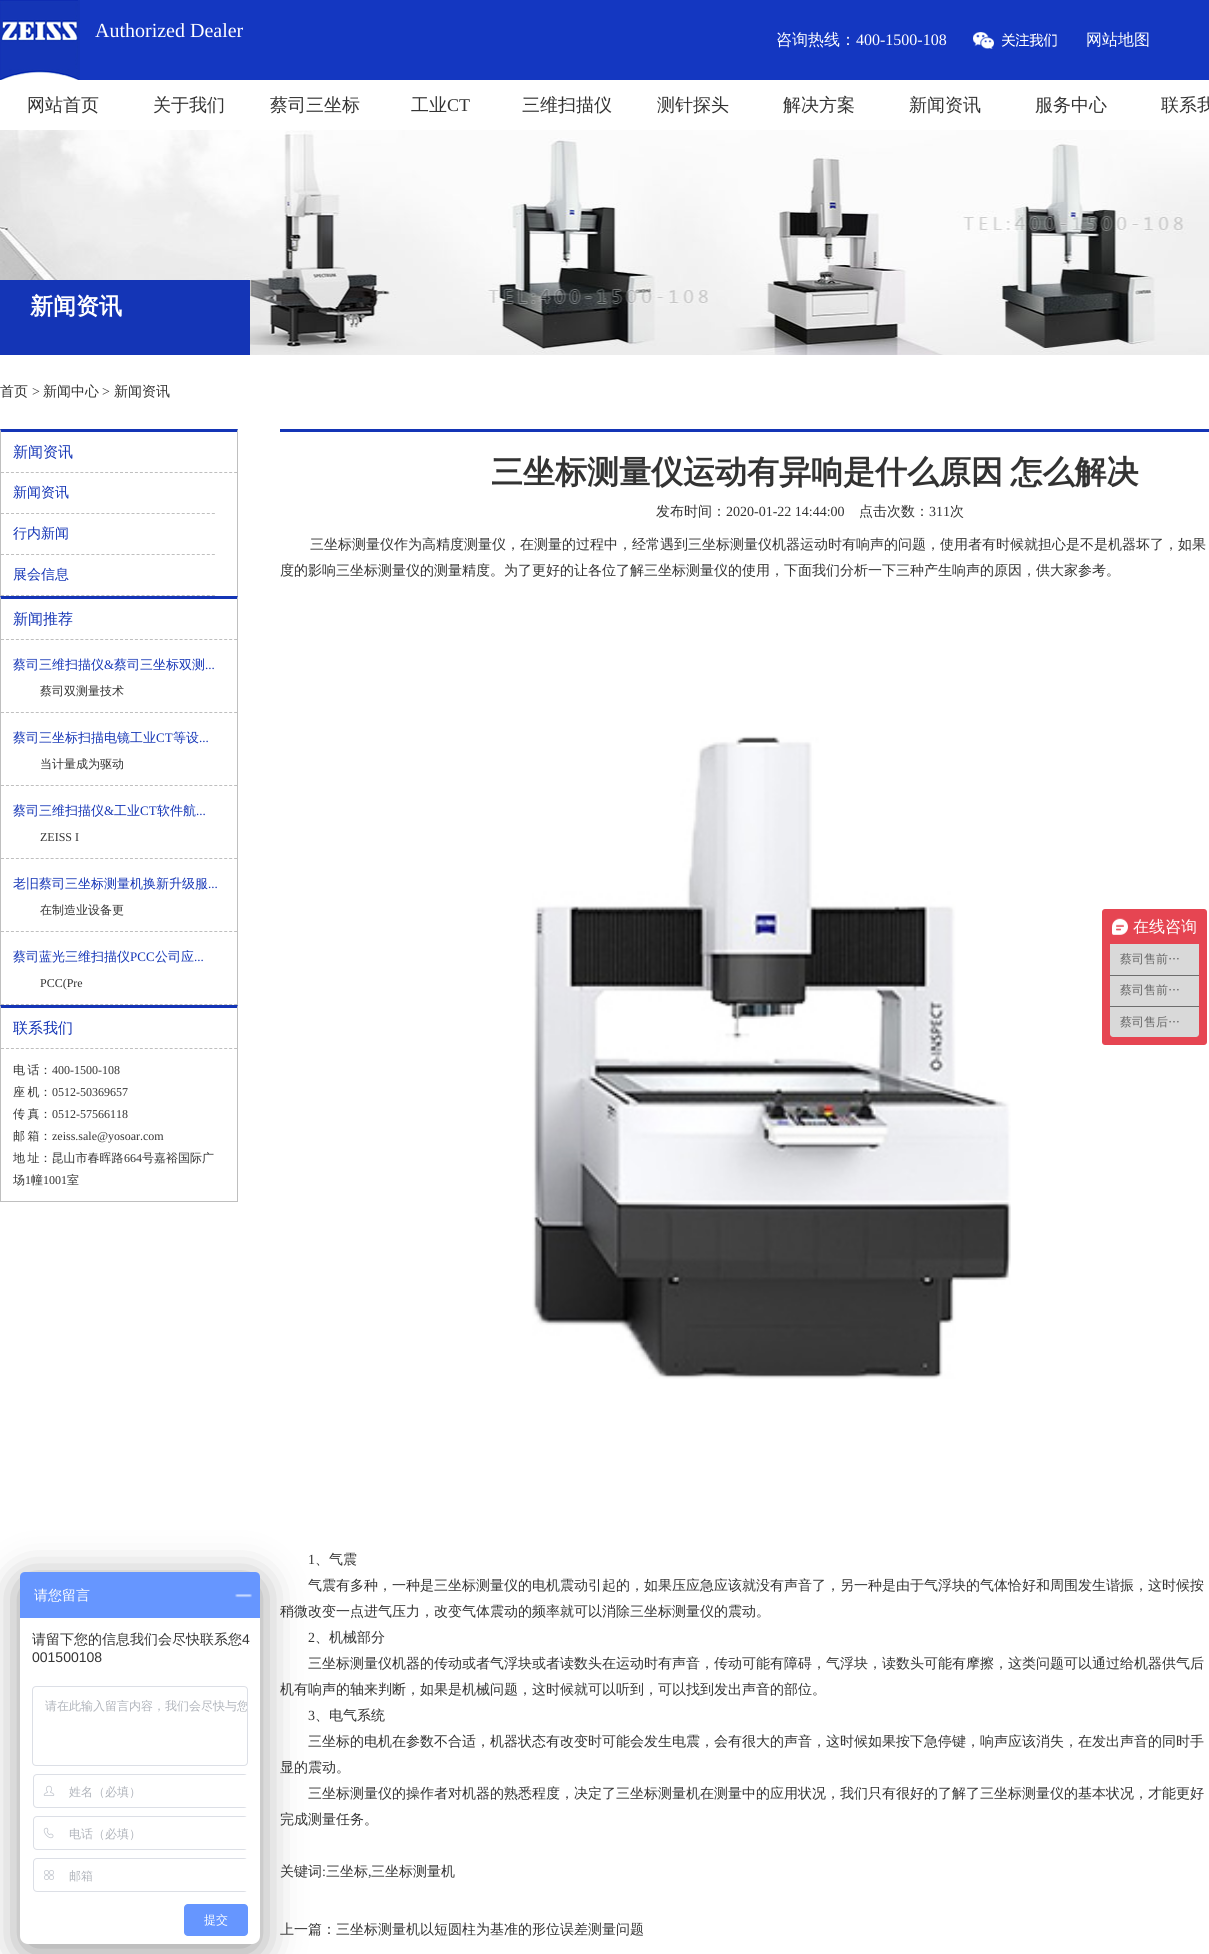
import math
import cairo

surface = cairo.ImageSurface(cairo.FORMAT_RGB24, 1209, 1954)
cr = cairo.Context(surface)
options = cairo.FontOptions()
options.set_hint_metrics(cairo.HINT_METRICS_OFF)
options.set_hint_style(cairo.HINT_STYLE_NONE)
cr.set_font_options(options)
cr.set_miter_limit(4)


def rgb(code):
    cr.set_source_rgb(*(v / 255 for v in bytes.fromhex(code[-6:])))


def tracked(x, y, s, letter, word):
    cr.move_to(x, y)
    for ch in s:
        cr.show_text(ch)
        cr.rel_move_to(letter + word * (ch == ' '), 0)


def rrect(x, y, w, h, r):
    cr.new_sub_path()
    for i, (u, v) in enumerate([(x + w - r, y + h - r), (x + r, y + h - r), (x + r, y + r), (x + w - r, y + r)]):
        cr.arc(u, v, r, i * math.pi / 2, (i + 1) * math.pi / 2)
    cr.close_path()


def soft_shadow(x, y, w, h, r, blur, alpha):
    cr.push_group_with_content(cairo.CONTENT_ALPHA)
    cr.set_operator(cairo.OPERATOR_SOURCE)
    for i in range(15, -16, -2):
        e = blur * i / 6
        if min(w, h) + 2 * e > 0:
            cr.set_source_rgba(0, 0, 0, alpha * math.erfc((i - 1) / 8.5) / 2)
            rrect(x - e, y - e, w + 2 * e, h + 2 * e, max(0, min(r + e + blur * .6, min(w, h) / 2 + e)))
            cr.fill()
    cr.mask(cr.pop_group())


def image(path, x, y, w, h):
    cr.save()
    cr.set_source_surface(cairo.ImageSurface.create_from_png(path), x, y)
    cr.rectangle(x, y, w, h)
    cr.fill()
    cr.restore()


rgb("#ffffff")
cr.paint()
rgb("#1437c1")
cr.rectangle(80, 0, 1129, 80)
cr.fill()
image("img/1.png", 0, 0, 80, 80)
image("img/2.png", 973, 32, 84, 17)
image("img/3.png", 0, 130, 1209, 225)
rgb("#1435b6")
cr.rectangle(0, 280, 250, 75)
cr.fill()
cr.new_path()
cr.move_to(0, 429)
cr.line_to(238, 429)
cr.line_to(237, 432)
cr.line_to(1, 432)
cr.close_path()
cr.fill()
rgb("#bfbfbf")
cr.new_path()
cr.move_to(238, 429)
cr.line_to(238, 596)
cr.line_to(237, 596)
cr.line_to(237, 432)
cr.close_path()
cr.fill()
cr.new_path()
cr.move_to(0, 596)
cr.line_to(0, 429)
cr.line_to(1, 432)
cr.line_to(1, 596)
cr.close_path()
cr.fill()
cr.new_path()
cr.move_to(1, 472.5)
cr.line_to(237, 472.5)
cr.set_line_width(1)
cr.set_dash([3, 1.96])
cr.stroke()
cr.new_path()
cr.move_to(1, 513.5)
cr.line_to(215, 513.5)
cr.set_dash([3, 2.02])
cr.stroke()
cr.new_path()
cr.move_to(1, 554.5)
cr.line_to(215, 554.5)
cr.stroke()
cr.new_path()
cr.move_to(1, 595.5)
cr.line_to(215, 595.5)
cr.stroke()
rgb("#1435b6")
cr.new_path()
cr.move_to(0, 596)
cr.line_to(238, 596)
cr.line_to(237, 599)
cr.line_to(1, 599)
cr.close_path()
cr.fill()
rgb("#bfbfbf")
cr.new_path()
cr.move_to(238, 596)
cr.line_to(238, 1005)
cr.line_to(237, 1005)
cr.line_to(237, 599)
cr.close_path()
cr.fill()
cr.new_path()
cr.move_to(0, 1005)
cr.line_to(0, 596)
cr.line_to(1, 599)
cr.line_to(1, 1005)
cr.close_path()
cr.fill()
cr.new_path()
cr.move_to(1, 639.5)
cr.line_to(237, 639.5)
cr.set_dash([3, 1.96])
cr.stroke()
cr.new_path()
cr.move_to(1, 712.5)
cr.line_to(237, 712.5)
cr.stroke()
cr.new_path()
cr.move_to(1, 785.5)
cr.line_to(237, 785.5)
cr.stroke()
cr.new_path()
cr.move_to(1, 858.5)
cr.line_to(237, 858.5)
cr.stroke()
cr.new_path()
cr.move_to(1, 931.5)
cr.line_to(237, 931.5)
cr.stroke()
cr.new_path()
cr.move_to(1, 1004.5)
cr.line_to(237, 1004.5)
cr.stroke()
rgb("#1435b6")
cr.new_path()
cr.move_to(0, 1005)
cr.line_to(238, 1005)
cr.line_to(237, 1008)
cr.line_to(1, 1008)
cr.close_path()
cr.fill()
rgb("#bfbfbf")
cr.new_path()
cr.move_to(238, 1005)
cr.line_to(238, 1202)
cr.line_to(237, 1201)
cr.line_to(237, 1008)
cr.close_path()
cr.fill()
cr.rectangle(0, 1201, 238, 1)
cr.fill()
cr.new_path()
cr.move_to(0, 1202)
cr.line_to(0, 1005)
cr.line_to(1, 1008)
cr.line_to(1, 1201)
cr.close_path()
cr.fill()
cr.new_path()
cr.move_to(1, 1048.5)
cr.line_to(237, 1048.5)
cr.stroke()
rgb("#1435b6")
cr.rectangle(280, 429, 929, 3)
cr.fill()
image("img/4.png", 532, 736, 479, 643)
rgb("#e64552")
rrect(1102, 909, 105, 136, 3)
cr.fill()
image("img/5.png", 1112, 918, 16, 17)
for x, y, w, h, color in [
    (1110, 944, 89, 31, "#d9d9d9"),
    (1110, 975, 89, 1, "#6d6d6d"),
    (1110, 976, 89, 30, "#d9d9d9"),
    (1110, 1006, 89, 1, "#6d6d6d"),
]:
    rgb(color)
    cr.rectangle(x, y, w, h)
    cr.fill()
rgb("#d9d9d9")
cr.new_path()
cr.move_to(1110, 1007)
cr.line_to(1199, 1007)
cr.line_to(1199, 1034)
cr.curve_to(1199, 1035.5, 1197.5, 1037, 1196, 1037)
cr.line_to(1113, 1037)
cr.curve_to(1111.5, 1037, 1110, 1035.5, 1110, 1034)
cr.close_path()
cr.fill()
rgb("#000000")
soft_shadow(20, 1580, 240, 372, 8, 20, 0.4)
rgb("#ffffff")
rrect(20, 1572, 240, 372, 8)
cr.fill()
rgb("#6696ff")
cr.new_path()
cr.move_to(25, 1572)
cr.line_to(255, 1572)
cr.curve_to(258, 1572, 260, 1574, 260, 1577)
cr.line_to(260, 1618)
cr.line_to(20, 1618)
cr.line_to(20, 1577)
cr.curve_to(20, 1574, 22, 1572, 25, 1572)
cr.close_path()
cr.fill()
image("img/6.png", 235, 1594, 17, 4)
rrect(32.5, 1686.5, 215, 79, 3.5)
rgb("#dcdfe6")
cr.set_dash([])
cr.stroke()
rrect(33.5, 1774.5, 214, 33, 3.5)
cr.stroke()
image("img/7.png", 43, 1785, 12, 11)
rgb("#ffffff")
cr.rectangle(244, 1775, 4, 32)
cr.fill()
rrect(33.5, 1816.5, 214, 33, 3.5)
rgb("#dcdfe6")
cr.stroke()
image("img/8.png", 43, 1827, 11, 12)
rgb("#ffffff")
cr.rectangle(244, 1817, 4, 32)
cr.fill()
rrect(33.5, 1858.5, 214, 33, 3.5)
rgb("#dcdfe6")
cr.stroke()
image("img/9.png", 44, 1870, 10, 10)
rgb("#ffffff")
cr.rectangle(244, 1859, 4, 32)
cr.fill()
rgb("#6696ff")
rrect(184, 1904, 64, 32, 4)
cr.fill()
cr.select_font_face("Liberation Serif")
cr.set_font_size(20)
rgb("#ffffff")
cr.move_to(95, 37)
cr.show_text("Authorized Dealer")
cr.select_font_face("WenQuanYi Zen Hei Medium")
cr.set_font_size(16)
cr.move_to(776, 45)
cr.show_text("咨询热线：")
cr.select_font_face("Liberation Serif")
cr.move_to(856, 45)
cr.show_text("400-1500-108")
cr.select_font_face("WenQuanYi Zen Hei Medium")
cr.move_to(1086, 45)
cr.show_text("网站地图")
cr.set_font_size(18)
rgb("#333333")
for x, y, s in [
    (27, 111, "网站首页"),
    (153, 111, "关于我们"),
    (270, 111, "蔡司三坐标"),
    (411, 111, "工业"),
]:
    cr.move_to(x, y)
    cr.show_text(s)
cr.select_font_face("Liberation Serif")
cr.move_to(447, 111)
cr.show_text("CT")
cr.select_font_face("WenQuanYi Zen Hei Medium")
for x, y, s in [
    (522, 111, "三维扫描仪"),
    (657, 111, "测针探头"),
    (783, 111, "解决方案"),
    (909, 111, "新闻资讯"),
    (1035, 111, "服务中心"),
    (1161, 111, "联系我"),
]:
    cr.move_to(x, y)
    cr.show_text(s)
cr.select_font_face("WenQuanYi Zen Hei", cairo.FONT_SLANT_NORMAL, cairo.FONT_WEIGHT_BOLD)
cr.set_font_size(23)
rgb("#ffffff")
cr.move_to(30, 314)
cr.show_text("新闻资讯")
cr.select_font_face("WenQuanYi Zen Hei Medium")
cr.set_font_size(14)
rgb("#333333")
cr.move_to(0, 396)
cr.show_text("首页")
cr.select_font_face("Liberation Serif")
cr.move_to(32, 396)
cr.show_text(">")
cr.select_font_face("WenQuanYi Zen Hei Medium")
cr.move_to(43, 396)
cr.show_text("新闻中心")
cr.select_font_face("Liberation Serif")
cr.move_to(102, 396)
cr.show_text(">")
cr.select_font_face("WenQuanYi Zen Hei Medium")
cr.move_to(114, 396)
cr.show_text("新闻资讯")
cr.set_font_size(15)
rgb("#1435b6")
cr.move_to(13, 457)
cr.show_text("新闻资讯")
cr.set_font_size(14)
for x, y, s in [
    (13, 497, "新闻资讯"),
    (13, 538, "行内新闻"),
    (13, 579, "展会信息"),
]:
    cr.move_to(x, y)
    cr.show_text(s)
cr.set_font_size(15)
cr.move_to(13, 624)
cr.show_text("新闻推荐")
cr.set_font_size(13)
cr.move_to(13, 669)
cr.show_text("蔡司三维扫描仪")
cr.select_font_face("Liberation Serif")
cr.move_to(104, 669)
cr.show_text("&")
cr.select_font_face("WenQuanYi Zen Hei Medium")
cr.move_to(114, 669)
cr.show_text("蔡司三坐标双测")
cr.select_font_face("Liberation Serif")
cr.move_to(205, 669)
cr.show_text("...")
cr.select_font_face("WenQuanYi Zen Hei Medium")
cr.set_font_size(12)
rgb("#333333")
cr.move_to(40, 695)
cr.show_text("蔡司双测量技术")
cr.set_font_size(13)
rgb("#1435b6")
cr.move_to(13, 742)
cr.show_text("蔡司三坐标扫描电镜工业")
cr.select_font_face("Liberation Serif")
cr.move_to(156, 742)
cr.show_text("CT")
cr.select_font_face("WenQuanYi Zen Hei Medium")
cr.move_to(173, 742)
cr.show_text("等设")
cr.select_font_face("Liberation Serif")
cr.move_to(199, 742)
cr.show_text("...")
cr.select_font_face("WenQuanYi Zen Hei Medium")
cr.set_font_size(12)
rgb("#333333")
cr.move_to(40, 768)
cr.show_text("当计量成为驱动")
cr.set_font_size(13)
rgb("#1435b6")
cr.move_to(13, 815)
cr.show_text("蔡司三维扫描仪")
cr.select_font_face("Liberation Serif")
cr.move_to(104, 815)
cr.show_text("&")
cr.select_font_face("WenQuanYi Zen Hei Medium")
cr.move_to(114, 815)
cr.show_text("工业")
cr.select_font_face("Liberation Serif")
cr.move_to(140, 815)
cr.show_text("CT")
cr.select_font_face("WenQuanYi Zen Hei Medium")
cr.move_to(157, 815)
cr.show_text("软件航")
cr.select_font_face("Liberation Serif")
cr.move_to(196, 815)
cr.show_text("...")
cr.set_font_size(12)
rgb("#333333")
cr.move_to(40, 841)
cr.show_text("ZEISS I")
cr.select_font_face("WenQuanYi Zen Hei Medium")
cr.set_font_size(13)
rgb("#1435b6")
cr.move_to(13, 888)
cr.show_text("老旧蔡司三坐标测量机换新升级服")
cr.select_font_face("Liberation Serif")
cr.move_to(208, 888)
cr.show_text("...")
cr.select_font_face("WenQuanYi Zen Hei Medium")
cr.set_font_size(12)
rgb("#333333")
cr.move_to(40, 914)
cr.show_text("在制造业设备更")
cr.set_font_size(13)
rgb("#1435b6")
cr.move_to(13, 961)
cr.show_text("蔡司蓝光三维扫描仪")
cr.select_font_face("Liberation Serif")
cr.move_to(130, 961)
cr.show_text("PCC")
cr.select_font_face("WenQuanYi Zen Hei Medium")
cr.move_to(155, 961)
cr.show_text("公司应")
cr.select_font_face("Liberation Serif")
cr.move_to(194, 961)
cr.show_text("...")
cr.set_font_size(12)
rgb("#333333")
cr.move_to(40, 987)
cr.show_text("PCC(Pre")
cr.select_font_face("WenQuanYi Zen Hei Medium")
cr.set_font_size(15)
rgb("#1435b6")
cr.move_to(13, 1033)
cr.show_text("联系我们")
cr.set_font_size(12)
rgb("#333333")
tracked(13, 1074, "电 话：", 0, -1)
cr.select_font_face("Liberation Serif")
cr.move_to(52, 1074)
cr.show_text("400-1500-108")
cr.select_font_face("WenQuanYi Zen Hei Medium")
tracked(13, 1096, "座 机：", 0, -1)
cr.select_font_face("Liberation Serif")
cr.move_to(52, 1096)
cr.show_text("0512-50369657")
cr.select_font_face("WenQuanYi Zen Hei Medium")
tracked(13, 1118, "传 真：", 0, -1)
cr.select_font_face("Liberation Serif")
cr.move_to(52, 1118)
cr.show_text("0512-57566118")
cr.select_font_face("WenQuanYi Zen Hei Medium")
tracked(13, 1140, "邮 箱：", 0, -1)
cr.select_font_face("Liberation Serif")
cr.move_to(52, 1140)
cr.show_text("zeiss.sale@yosoar.com")
cr.select_font_face("WenQuanYi Zen Hei Medium")
tracked(13, 1162, "地 址：昆山市春晖路", 0, -1)
cr.select_font_face("Liberation Serif")
cr.move_to(124, 1162)
cr.show_text("664")
cr.select_font_face("WenQuanYi Zen Hei Medium")
cr.move_to(142, 1162)
cr.show_text("号嘉裕国际广")
cr.move_to(13, 1184)
cr.show_text("场")
cr.select_font_face("Liberation Serif")
cr.move_to(25, 1184)
cr.show_text("1")
cr.select_font_face("WenQuanYi Zen Hei Medium")
cr.move_to(31, 1184)
cr.show_text("幢")
cr.select_font_face("Liberation Serif")
cr.move_to(43, 1184)
cr.show_text("1001")
cr.select_font_face("WenQuanYi Zen Hei Medium")
cr.move_to(67, 1184)
cr.show_text("室")
cr.select_font_face("WenQuanYi Zen Hei", cairo.FONT_SLANT_NORMAL, cairo.FONT_WEIGHT_BOLD)
cr.set_font_size(32)
tracked(491, 483, "三坐标测量仪运动有异响是什么原因 怎么解决", 0, -2)
cr.select_font_face("WenQuanYi Zen Hei Medium")
cr.set_font_size(14)
cr.move_to(656, 516)
cr.show_text("发布时间：")
cr.select_font_face("Liberation Serif")
cr.move_to(726, 516)
cr.show_text("2020-01-22 14:44:00")
cr.select_font_face("WenQuanYi Zen Hei Medium")
cr.move_to(859, 516)
cr.show_text("点击次数：")
cr.select_font_face("Liberation Serif")
cr.move_to(929, 516)
cr.show_text("311")
cr.select_font_face("WenQuanYi Zen Hei Medium")
for x, y, s in [
    (950, 516, "次"),
    (310, 549, "三坐标测量仪作为高精度测量仪，在测量的过程中，经常遇到三坐标测量仪机器运动时有响声的问题，使用者有时候就担心是不是机器坏了，如果"),
    (280, 575, "度的影响三坐标测量仪的测量精度。为了更好的让各位了解三坐标测量仪的使用，下面我们分析一下三种产生响声的原因，供大家参考。"),
]:
    cr.move_to(x, y)
    cr.show_text(s)
cr.select_font_face("Liberation Serif")
cr.move_to(308, 1564)
cr.show_text("1")
cr.select_font_face("WenQuanYi Zen Hei Medium")
for x, y, s in [
    (315, 1564, "、气震"),
    (308, 1590, "气震有多种，一种是三坐标测量仪的电机震动引起的，如果压应急应该就没有声音了，另一种是由于气浮块的气体恰好和周围发生谐振，这时候按"),
    (280, 1616, "稍微改变一点进气压力，改变气体震动的频率就可以消除三坐标测量仪的震动。"),
]:
    cr.move_to(x, y)
    cr.show_text(s)
cr.select_font_face("Liberation Serif")
cr.move_to(308, 1642)
cr.show_text("2")
cr.select_font_face("WenQuanYi Zen Hei Medium")
for x, y, s in [
    (315, 1642, "、机械部分"),
    (308, 1668, "三坐标测量仪机器的传动或者气浮块或者读数头在运动时有声音，传动可能有障碍，气浮块，读数头可能有摩擦，这类问题可以通过给机器供气后"),
    (280, 1694, "机有响声的轴来判断，如果是机械问题，这时候就可以听到，可以找到发出声音的部位。"),
]:
    cr.move_to(x, y)
    cr.show_text(s)
cr.select_font_face("Liberation Serif")
cr.move_to(308, 1720)
cr.show_text("3")
cr.select_font_face("WenQuanYi Zen Hei Medium")
for x, y, s in [
    (315, 1720, "、电气系统"),
    (308, 1746, "三坐标的电机在参数不合适，机器状态有改变时可能会发生电震，会有很大的声音，这时候如果按下急停键，响声应该消失，在发出声音的同时手"),
    (280, 1772, "显的震动。"),
    (308, 1798, "三坐标测量仪的操作者对机器的熟悉程度，决定了三坐标测量机在测量中的应用状况，我们只有很好的了解了三坐标测量仪的基本状况，才能更好"),
    (280, 1824, "完成测量任务。"),
    (280, 1876, "关键词"),
]:
    cr.move_to(x, y)
    cr.show_text(s)
cr.select_font_face("Liberation Serif")
cr.move_to(322, 1876)
cr.show_text(":")
cr.select_font_face("WenQuanYi Zen Hei Medium")
cr.move_to(326, 1876)
cr.show_text("三坐标")
cr.select_font_face("Liberation Serif")
cr.move_to(368, 1876)
cr.show_text(",")
cr.select_font_face("WenQuanYi Zen Hei Medium")
cr.move_to(371, 1876)
cr.show_text("三坐标测量机")
cr.move_to(280, 1934)
cr.show_text("上一篇：三坐标测量机以短圆柱为基准的形位误差测量问题")
cr.set_font_size(16)
rgb("#ffffff")
cr.move_to(1133, 932)
cr.show_text("在线咨询")
cr.set_font_size(12)
rgb("#666666")
for x, y, s in [
    (1120, 963, "蔡司售前…"),
    (1120, 994, "蔡司售前…"),
    (1120, 1026, "蔡司售后…"),
]:
    cr.move_to(x, y)
    cr.show_text(s)
cr.set_font_size(14)
rgb("#ffffff")
cr.move_to(34, 1600)
cr.show_text("请您留言")
rgb("#333333")
cr.move_to(32, 1644)
cr.show_text("请留下您的信息我们会尽快联系您")
cr.select_font_face("Liberation Sans")
cr.move_to(242, 1644)
cr.show_text("4")
cr.move_to(32, 1662)
cr.show_text("001500108")
cr.save()
rrect(33, 1687, 214, 78, 3)
cr.clip()
cr.select_font_face("WenQuanYi Zen Hei Medium")
cr.set_font_size(12)
rgb("#b0b4bb")
cr.move_to(45, 1710)
cr.show_text("请在此输入留言内容，我们会尽快与您")
cr.restore()
cr.select_font_face("WenQuanYi Zen Hei Medium")
cr.set_font_size(12)
rgb("#b0b4bb")
for x, y, s in [
    (69, 1796, "姓名（必填）"),
    (69, 1838, "电话（必填）"),
    (69, 1880, "邮箱"),
]:
    cr.move_to(x, y)
    cr.show_text(s)
rgb("#ffffff")
cr.move_to(204, 1924)
cr.show_text("提交")
surface.write_to_png("page.png")
